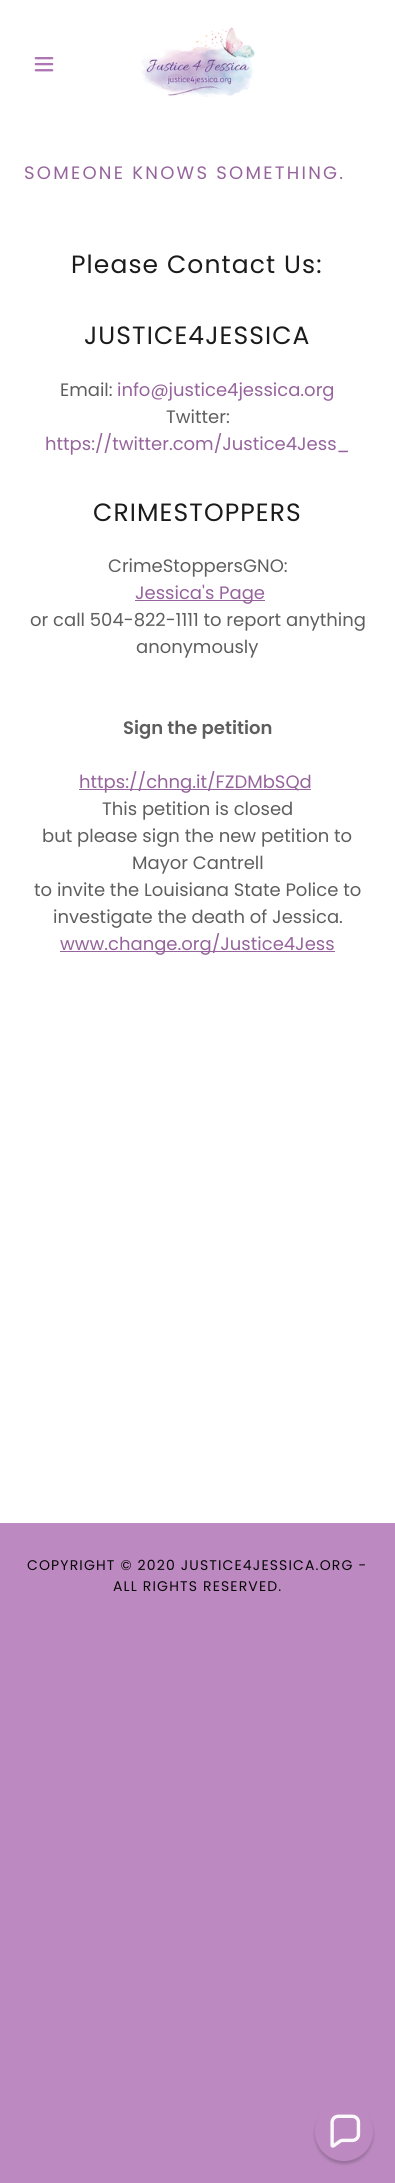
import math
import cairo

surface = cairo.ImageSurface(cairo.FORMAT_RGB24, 395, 2183)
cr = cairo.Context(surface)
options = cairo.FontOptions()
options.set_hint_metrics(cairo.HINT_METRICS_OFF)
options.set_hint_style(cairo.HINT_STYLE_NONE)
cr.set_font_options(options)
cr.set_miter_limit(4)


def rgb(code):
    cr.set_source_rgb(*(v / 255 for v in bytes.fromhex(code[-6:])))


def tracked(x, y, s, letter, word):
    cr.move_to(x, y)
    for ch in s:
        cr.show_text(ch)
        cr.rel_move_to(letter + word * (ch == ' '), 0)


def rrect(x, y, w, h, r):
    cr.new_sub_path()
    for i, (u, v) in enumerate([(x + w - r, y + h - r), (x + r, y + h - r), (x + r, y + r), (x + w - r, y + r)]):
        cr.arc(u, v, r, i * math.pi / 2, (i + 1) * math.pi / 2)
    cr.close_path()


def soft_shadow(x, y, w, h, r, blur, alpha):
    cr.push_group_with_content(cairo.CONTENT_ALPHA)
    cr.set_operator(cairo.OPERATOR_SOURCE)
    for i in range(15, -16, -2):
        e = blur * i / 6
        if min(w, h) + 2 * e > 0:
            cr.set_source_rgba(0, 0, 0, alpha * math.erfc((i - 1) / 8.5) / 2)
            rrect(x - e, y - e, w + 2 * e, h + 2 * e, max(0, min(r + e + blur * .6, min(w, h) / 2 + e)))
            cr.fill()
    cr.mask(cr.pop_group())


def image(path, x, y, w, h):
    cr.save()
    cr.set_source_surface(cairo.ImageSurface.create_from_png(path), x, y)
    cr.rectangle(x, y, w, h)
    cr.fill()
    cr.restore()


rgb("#bc8ac1")
cr.paint()
rgb("#ffffff")
cr.rectangle(0, 0, 395, 1523)
cr.fill()
image("img/1.png", 34, 57, 20, 15)
image("img/2.png", 141, 27, 114, 70)
for x, y, w, h, color in [
    (135, 600, 130, 1, "#96649c"),
    (79, 789, 232, 1, "#96649c"),
    (60, 951, 275, 1, "#96649c"),
]:
    rgb(color)
    cr.rectangle(x, y, w, h)
    cr.fill()
rgb("#09070a")
soft_shadow(315, 2106, 58, 58, 29, 1.5, 0.2)
rgb("#bc8ac1")
cr.arc(344, 2132, 29, 0, 2 * math.pi)
cr.fill()
image("img/3.png", 330, 2114, 31, 34)
cr.select_font_face("Poppins")
cr.set_font_size(18)
rgb("#96649c")
tracked(24, 179, "SOMEONE KNOWS SOMETHING.", 2.25, 0)
cr.set_font_size(25)
rgb("#1b1b1b")
tracked(71, 273, "Please Contact Us:", 1.1, 0)
tracked(84, 344, "JUSTICE4JESSICA", 1.1, 0)
cr.set_font_size(18)
rgb("#5e5e5e")
cr.move_to(60, 396)
cr.show_text("Email:")
rgb("#96649c")
cr.move_to(117, 396)
cr.show_text("info@justice4jessica.org")
rgb("#5e5e5e")
cr.move_to(166, 423)
cr.show_text("Twitter:")
rgb("#96649c")
cr.move_to(45, 450)
cr.show_text("https://twitter.com/Justice4Jess_")
cr.set_font_size(25)
rgb("#1b1b1b")
tracked(93, 521, "CRIMESTOPPERS", 1.1, 0)
cr.set_font_size(18)
rgb("#5e5e5e")
cr.move_to(108, 572)
cr.show_text("CrimeStoppersGNO:")
rgb("#96649c")
cr.move_to(135, 599)
cr.show_text("Jessica's Page")
rgb("#5e5e5e")
cr.move_to(30, 626)
cr.show_text("or call 504-822-1111 to report anything")
cr.move_to(136, 653)
cr.show_text("anonymously")
cr.select_font_face("Poppins SemiBold")
cr.move_to(123, 734)
cr.show_text("Sign the petition")
cr.select_font_face("Poppins")
rgb("#96649c")
cr.move_to(79, 788)
cr.show_text("https://chng.it/FZDMbSQd")
rgb("#5e5e5e")
for x, y, s in [
    (102, 815, "This petition is closed"),
    (42, 842, "but please sign the new petition to"),
    (132, 869, "Mayor Cantrell"),
    (34, 896, "to invite the Louisiana State Police to"),
    (53, 923, "investigate the death of Jessica."),
]:
    cr.move_to(x, y)
    cr.show_text(s)
rgb("#96649c")
cr.move_to(60, 950)
cr.show_text("www.change.org/Justice4Jess")
cr.set_font_size(14)
rgb("#070707")
tracked(27, 1570, "COPYRIGHT © 2020 JUSTICE4JESSICA.ORG -", 1.15, 0)
tracked(113, 1591, "ALL RIGHTS RESERVED.", 1.15, 0)
surface.write_to_png("page.png")
